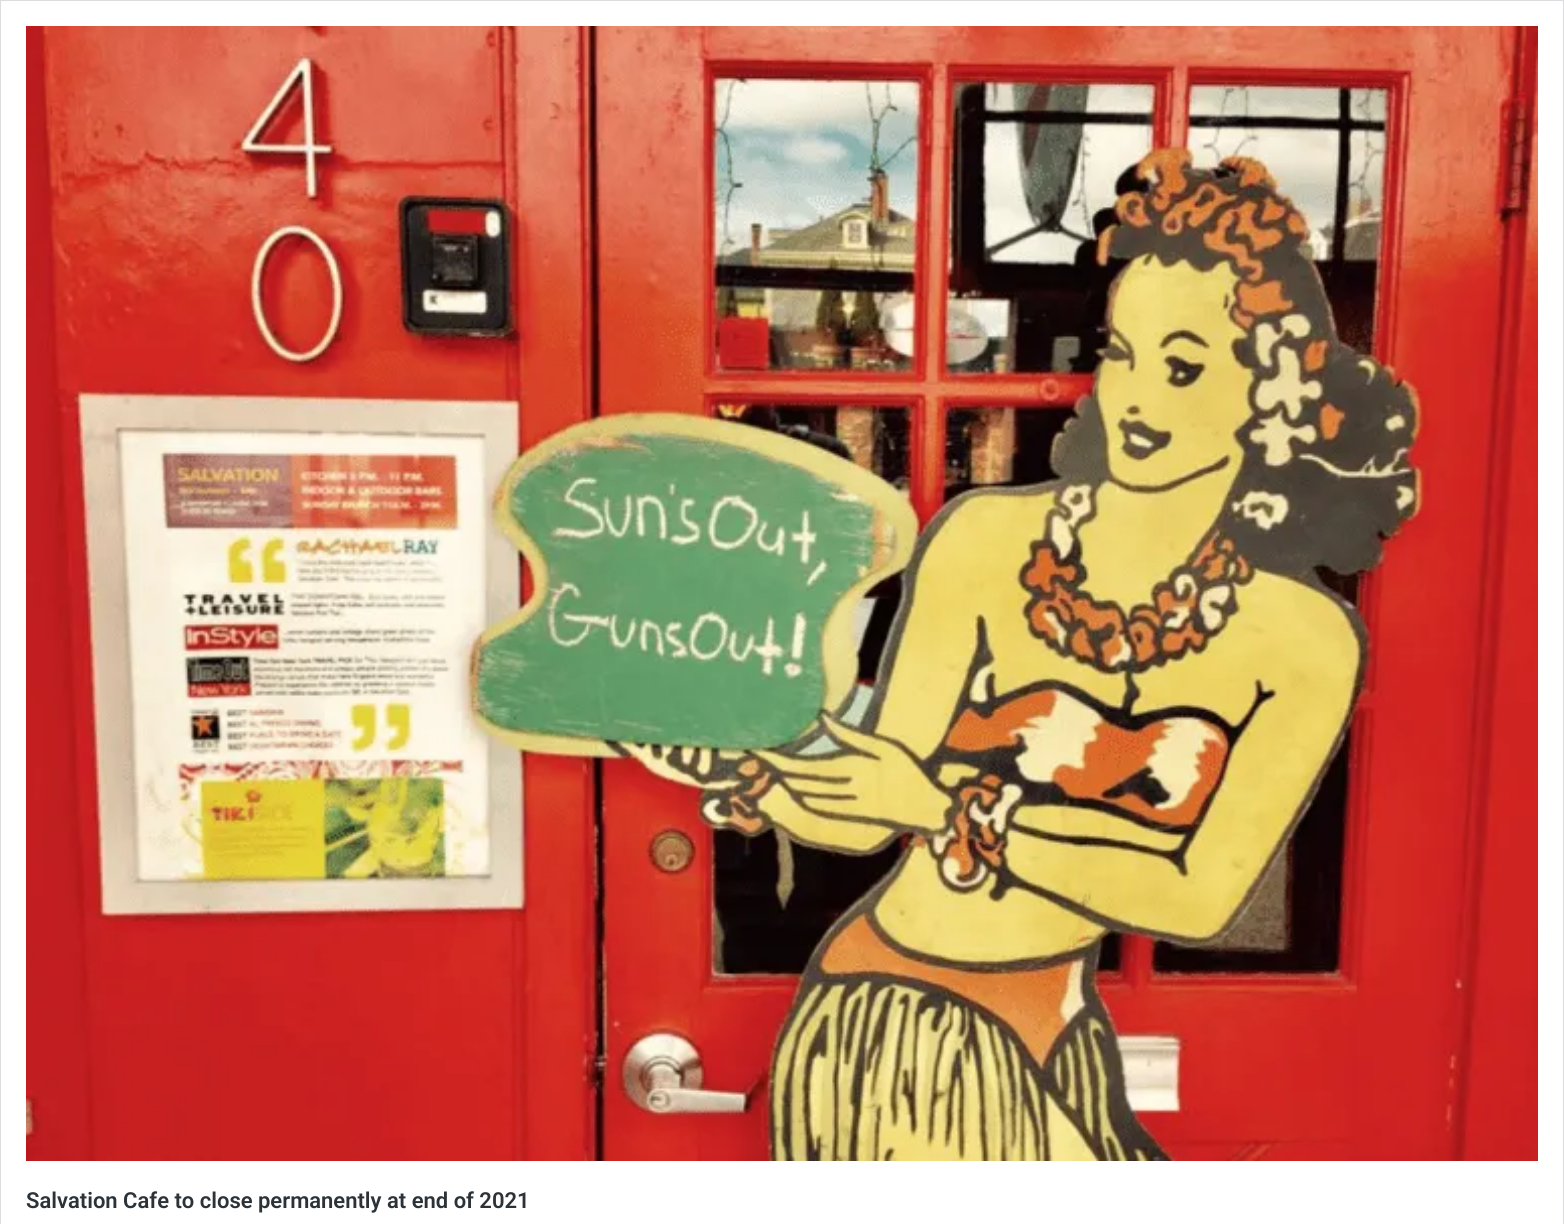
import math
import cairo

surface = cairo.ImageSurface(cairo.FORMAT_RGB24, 1564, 1224)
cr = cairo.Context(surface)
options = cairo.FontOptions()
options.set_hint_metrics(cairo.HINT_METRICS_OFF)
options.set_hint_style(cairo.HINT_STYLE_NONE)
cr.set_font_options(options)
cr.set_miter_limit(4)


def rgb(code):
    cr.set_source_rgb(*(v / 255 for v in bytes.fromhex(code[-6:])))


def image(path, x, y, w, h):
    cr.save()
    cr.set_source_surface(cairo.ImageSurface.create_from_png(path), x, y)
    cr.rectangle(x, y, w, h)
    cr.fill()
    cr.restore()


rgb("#ffffff")
cr.paint()
cr.rectangle(0.5, 0.5, 1563, 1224)
rgb("#dcdcde")
cr.set_line_width(1)
cr.stroke()
image("img/1.png", 26, 26, 1512, 1135)
cr.select_font_face("Roboto SemiBold")
cr.set_font_size(22)
rgb("#2c3338")
cr.move_to(26, 1208)
cr.show_text("Salvation Cafe to close permanently at end of 2021")
surface.write_to_png("page.png")
